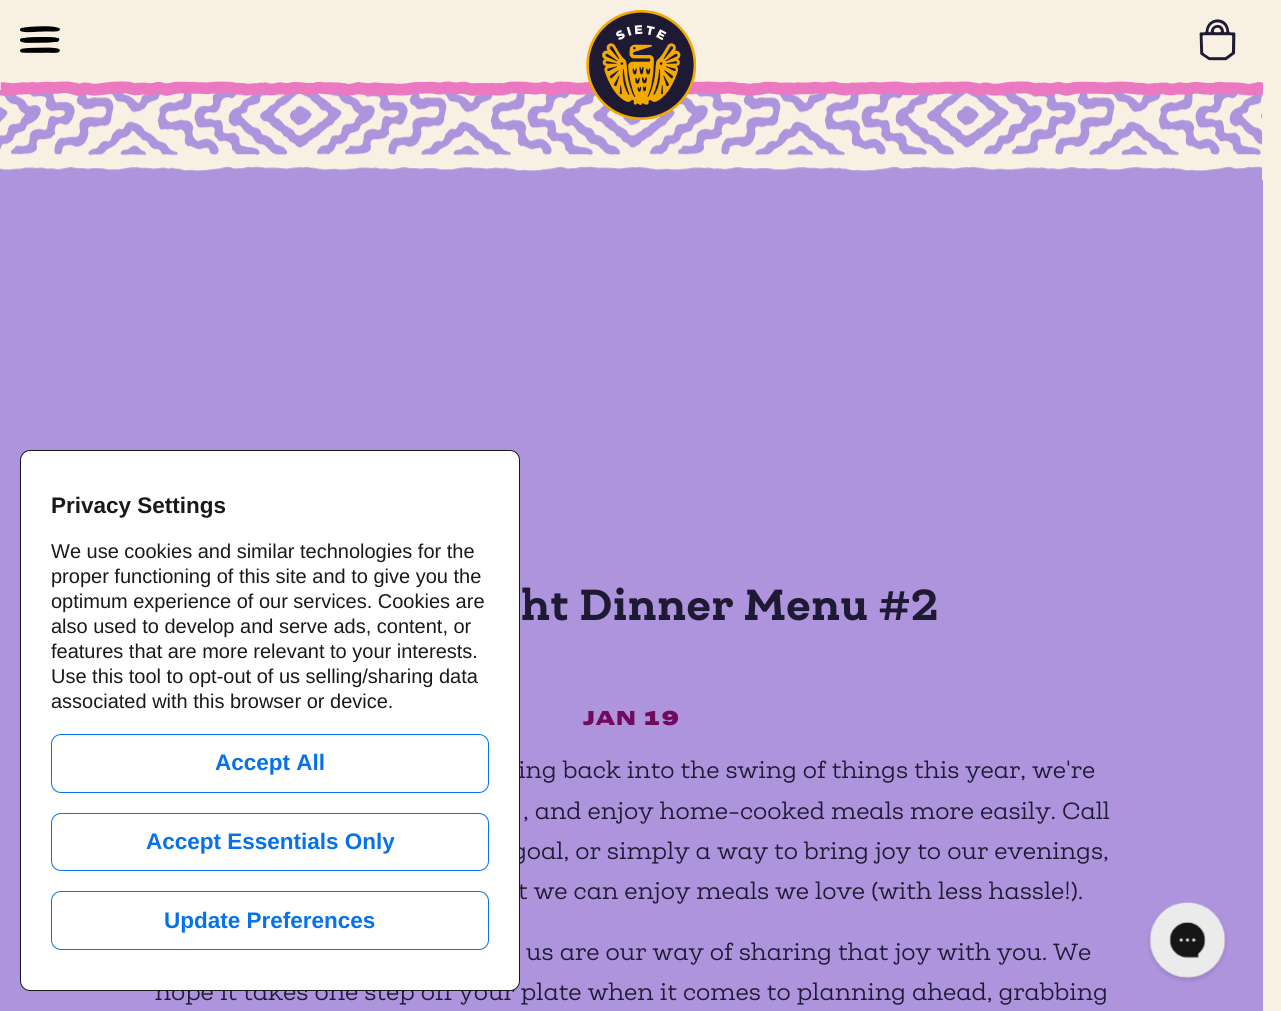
import math
import cairo

surface = cairo.ImageSurface(cairo.FORMAT_RGB24, 1281, 1011)
cr = cairo.Context(surface)
options = cairo.FontOptions()
options.set_hint_metrics(cairo.HINT_METRICS_OFF)
options.set_hint_style(cairo.HINT_STYLE_NONE)
cr.set_font_options(options)
cr.set_miter_limit(4)


def rgb(code):
    cr.set_source_rgb(*(v / 255 for v in bytes.fromhex(code[-6:])))


def tracked(x, y, s, letter, word):
    cr.move_to(x, y)
    for ch in s:
        cr.show_text(ch)
        cr.rel_move_to(letter + word * (ch == ' '), 0)


def rrect(x, y, w, h, r):
    cr.new_sub_path()
    for i, (u, v) in enumerate([(x + w - r, y + h - r), (x + r, y + h - r), (x + r, y + r), (x + w - r, y + r)]):
        cr.arc(u, v, r, i * math.pi / 2, (i + 1) * math.pi / 2)
    cr.close_path()


def image(path, x, y, w, h):
    cr.save()
    cr.set_source_surface(cairo.ImageSurface.create_from_png(path), x, y)
    cr.rectangle(x, y, w, h)
    cr.fill()
    cr.restore()


rgb("#f8f0e2")
cr.paint()
image("img/7.png", 0, 92, 1263, 88)
image("img/4.png", 0, 92, 1223, 3)
image("img/3.png", 0, 90, 1223, 5)
image("img/2.png", 0, 81, 1263, 15)
image("img/1.png", 586, 10, 110, 110)
image("img/5.png", 20, 26, 40, 27)
image("img/6.png", 1199, 19, 37, 42)
rgb("#ae94dc")
cr.rectangle(0, 180, 1263, 831)
cr.fill()
image("img/8.png", 1147, 902, 81, 81)
cr.select_font_face("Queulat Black")
cr.set_font_size(41.6)
rgb("#1e1a34")
cr.move_to(521, 620)
cr.show_text("ht Dinner Menu #2")
cr.select_font_face("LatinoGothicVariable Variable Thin", cairo.FONT_SLANT_ITALIC)
cr.set_font_size(20)
rgb("#710a5e")
tracked(583, 725, "JAN 19", 1.5, 0)
cr.select_font_face("Queulat")
cr.set_font_size(22.4)
rgb("#1e1a34")
for x, y, s in [
    (518, 778, "ing back into the swing of things this year, we're"),
    (523, 819, ", and enjoy home-cooked meals more easily. Call"),
    (512, 859, "goal, or simply a way to bring joy to our evenings,"),
    (518, 899, "t we can enjoy meals we love (with less hassle!)."),
    (526, 960, "us are our way of sharing that joy with you. We"),
    (155, 1000, "hope it takes one step off your plate when it comes to planning ahead, grabbing"),
]:
    cr.move_to(x, y)
    cr.show_text(s)
rgb("#ffffff")
rrect(20.5, 450.5, 499, 540, 9.5)
cr.fill_preserve()
rgb("#17191a")
cr.set_line_width(1)
cr.stroke()
rrect(51.5, 891.5, 437, 58, 9.5)
rgb("#0671ec")
cr.stroke()
cr.select_font_face("Liberation Sans", cairo.FONT_SLANT_NORMAL, cairo.FONT_WEIGHT_BOLD)
cr.set_font_size(22.5)
cr.move_to(164, 928)
cr.show_text("Update Preferences")
rrect(51.5, 813.5, 437, 57, 9.5)
cr.stroke()
cr.move_to(146, 849)
cr.show_text("Accept Essentials Only")
rrect(51.5, 734.5, 437, 58, 9.5)
cr.stroke()
cr.move_to(215, 770)
cr.show_text("Accept All")
cr.select_font_face("Liberation Sans")
cr.set_font_size(20)
rgb("#17191a")
for x, y, s in [
    (51, 708, "associated with this browser or device."),
    (51, 683, "Use this tool to opt-out of us selling/sharing data"),
    (51, 658, "features that are more relevant to your interests."),
    (51, 633, "also used to develop and serve ads, content, or"),
    (51, 608, "optimum experience of our services. Cookies are"),
    (51, 583, "proper functioning of this site and to give you the"),
    (51, 558, "We use cookies and similar technologies for the"),
]:
    cr.move_to(x, y)
    cr.show_text(s)
cr.select_font_face("Liberation Sans", cairo.FONT_SLANT_NORMAL, cairo.FONT_WEIGHT_BOLD)
cr.set_font_size(22.5)
cr.move_to(51, 513)
cr.show_text("Privacy Settings")
surface.write_to_png("page.png")
